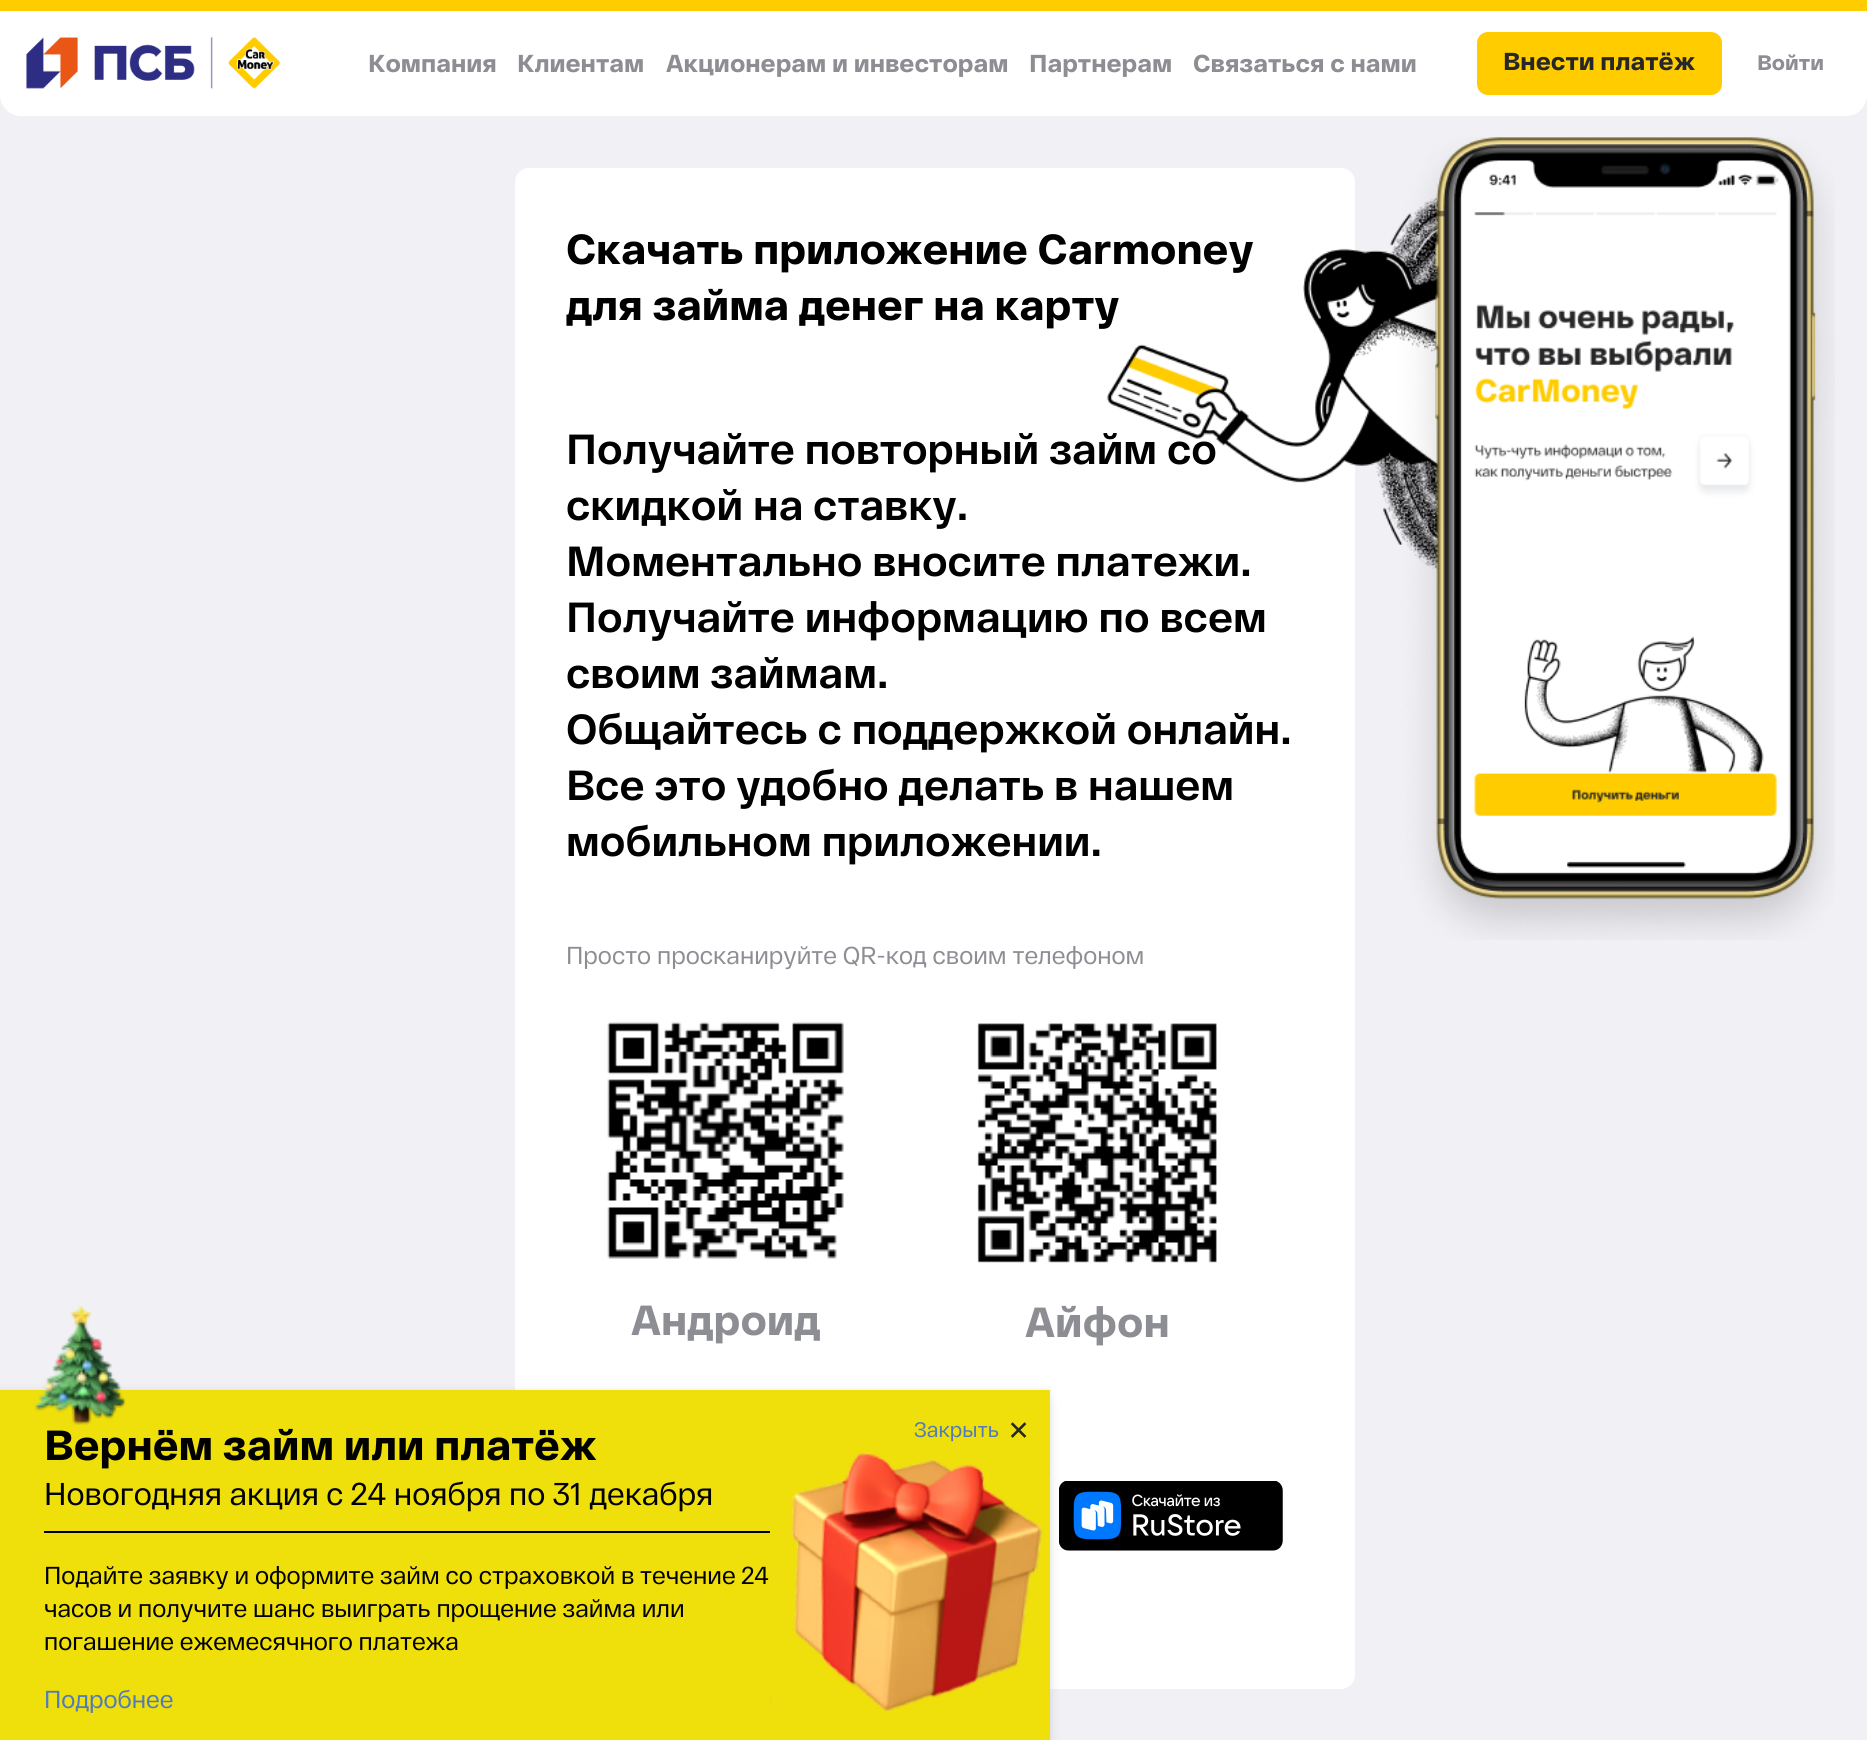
import math
import cairo

surface = cairo.ImageSurface(cairo.FORMAT_RGB24, 1867, 1740)
cr = cairo.Context(surface)
options = cairo.FontOptions()
options.set_hint_metrics(cairo.HINT_METRICS_OFF)
options.set_hint_style(cairo.HINT_STYLE_NONE)
cr.set_font_options(options)
cr.set_miter_limit(4)


def rgb(code):
    cr.set_source_rgb(*(v / 255 for v in bytes.fromhex(code[-6:])))


def rrect(x, y, w, h, r):
    cr.new_sub_path()
    for i, (u, v) in enumerate([(x + w - r, y + h - r), (x + r, y + h - r), (x + r, y + r), (x + w - r, y + r)]):
        cr.arc(u, v, r, i * math.pi / 2, (i + 1) * math.pi / 2)
    cr.close_path()


def soft_shadow(x, y, w, h, r, blur, alpha):
    cr.push_group_with_content(cairo.CONTENT_ALPHA)
    cr.set_operator(cairo.OPERATOR_SOURCE)
    for i in range(15, -16, -2):
        e = blur * i / 6
        if min(w, h) + 2 * e > 0:
            cr.set_source_rgba(0, 0, 0, alpha * math.erfc((i - 1) / 8.5) / 2)
            rrect(x - e, y - e, w + 2 * e, h + 2 * e, max(0, min(r + e + blur * .6, min(w, h) / 2 + e)))
            cr.fill()
    cr.mask(cr.pop_group())


def image(path, x, y, w, h):
    cr.save()
    cr.set_source_surface(cairo.ImageSurface.create_from_png(path), x, y)
    cr.rectangle(x, y, w, h)
    cr.fill()
    cr.restore()


rgb("#f0f0f5")
cr.paint()
rgb("#ffffff")
cr.new_path()
cr.move_to(0, 0)
cr.line_to(1867, 0)
cr.line_to(1867, 95)
cr.curve_to(1867, 106.5, 1857.5, 116, 1846, 116)
cr.line_to(21, 116)
cr.curve_to(9.5, 116, 0, 106.5, 0, 95)
cr.close_path()
cr.fill()
rgb("#ffcc00")
cr.rectangle(0, 0, 1867, 11)
cr.fill()
image("img/1.png", 26, 37, 254, 52)
rrect(1477, 32, 245, 63, 11)
cr.fill()
rgb("#ffffff")
rrect(515, 168, 840, 1521, 14)
cr.fill()
image("img/2.png", 607, 1021, 237, 238)
image("img/3.png", 977, 1023, 240, 240)
image("img/4.png", 1059, 1481, 224, 70)
image("img/5.png", 1106, 137, 729, 803)
rgb("#828894")
soft_shadow(0, 1404, 1050, 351, 0, 7, 0.16)
soft_shadow(0, 1390, 1050, 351, 0, 3.5, 0.16)
rgb("#efdf0b")
cr.rectangle(0, 1390, 1050, 350)
cr.fill()
image("img/6.png", 35, 1305, 91, 120)
rgb("#000000")
cr.rectangle(44, 1531, 726, 2)
cr.fill()
image("img/7.png", 770, 1452, 280, 260)
cr.select_font_face("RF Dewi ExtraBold")
cr.set_font_size(24.5)
rgb("#8d8d94")
for x, y, s in [
    (368, 72, "Компания"),
    (517, 72, "Клиентам"),
    (666, 72, "Акционерам и инвесторам"),
    (1029, 72, "Партнерам"),
    (1193, 72, "Связаться с нами"),
]:
    cr.move_to(x, y)
    cr.show_text(s)
rgb("#272729")
cr.move_to(1503, 70)
cr.show_text("Внести платёж")
cr.set_font_size(21)
rgb("#8d8d94")
cr.move_to(1757, 70)
cr.show_text("Войти")
cr.set_font_size(42)
rgb("#000000")
cr.move_to(566, 264)
cr.show_text("Скачать приложение Carmoney")
cr.move_to(566, 320)
cr.show_text("для займа денег на карту")
cr.select_font_face("RF Dewi", cairo.FONT_SLANT_NORMAL, cairo.FONT_WEIGHT_BOLD)
for x, y, s in [
    (566, 464, "Получайте повторный займ со"),
    (566, 520, "скидкой на ставку."),
    (566, 576, "Моментально вносите платежи."),
    (566, 632, "Получайте информацию по всем"),
    (566, 688, "своим займам."),
    (566, 744, "Общайтесь с поддержкой онлайн."),
    (566, 800, "Все это удобно делать в нашем"),
    (566, 856, "мобильном приложении."),
]:
    cr.move_to(x, y)
    cr.show_text(s)
cr.select_font_face("RF Dewi")
cr.set_font_size(24.5)
rgb("#8d8d94")
cr.move_to(566, 964)
cr.show_text("Просто просканируйте QR-код своим телефоном")
cr.select_font_face("RF Dewi ExtraBold")
cr.set_font_size(42)
cr.move_to(631, 1335)
cr.show_text("Андроид")
cr.move_to(1025, 1337)
cr.show_text("Айфон")
rgb("#000000")
cr.move_to(44, 1460)
cr.show_text("Вернём займ или платёж")
cr.select_font_face("RF Dewi")
cr.set_font_size(31.5)
cr.move_to(44, 1505)
cr.show_text("Новогодняя акция с 24 ноября по 31 декабря")
cr.set_font_size(21)
rgb("#507bbc")
cr.move_to(914, 1437)
cr.show_text("Закрыть")
cr.set_font_size(42)
rgb("#272729")
cr.move_to(1008, 1444)
cr.show_text("×")
cr.set_font_size(24.5)
rgb("#000000")
for x, y, s in [
    (44, 1584, "Подайте заявку и оформите займ со страховкой в течение 24"),
    (44, 1617, "часов и получите шанс выиграть прощение займа или"),
    (44, 1650, "погашение ежемесячного платежа"),
]:
    cr.move_to(x, y)
    cr.show_text(s)
rgb("#507bbc")
cr.move_to(44, 1708)
cr.show_text("Подробнее")
surface.write_to_png("page.png")
